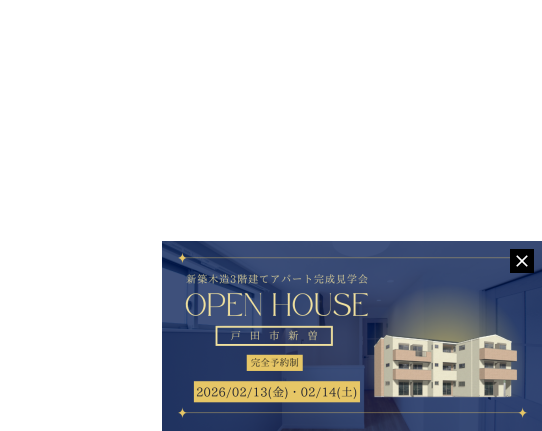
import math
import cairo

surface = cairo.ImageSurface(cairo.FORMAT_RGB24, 542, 431)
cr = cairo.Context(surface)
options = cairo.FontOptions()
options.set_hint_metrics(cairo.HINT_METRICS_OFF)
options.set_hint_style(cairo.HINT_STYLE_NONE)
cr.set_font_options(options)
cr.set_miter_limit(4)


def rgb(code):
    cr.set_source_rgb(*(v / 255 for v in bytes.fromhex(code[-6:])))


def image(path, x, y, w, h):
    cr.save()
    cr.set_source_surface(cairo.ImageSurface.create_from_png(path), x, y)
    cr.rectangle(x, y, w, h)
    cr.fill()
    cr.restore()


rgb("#ffffff")
cr.paint()
image("img/1.png", 162, 241, 380, 190)
surface.write_to_png("page.png")
